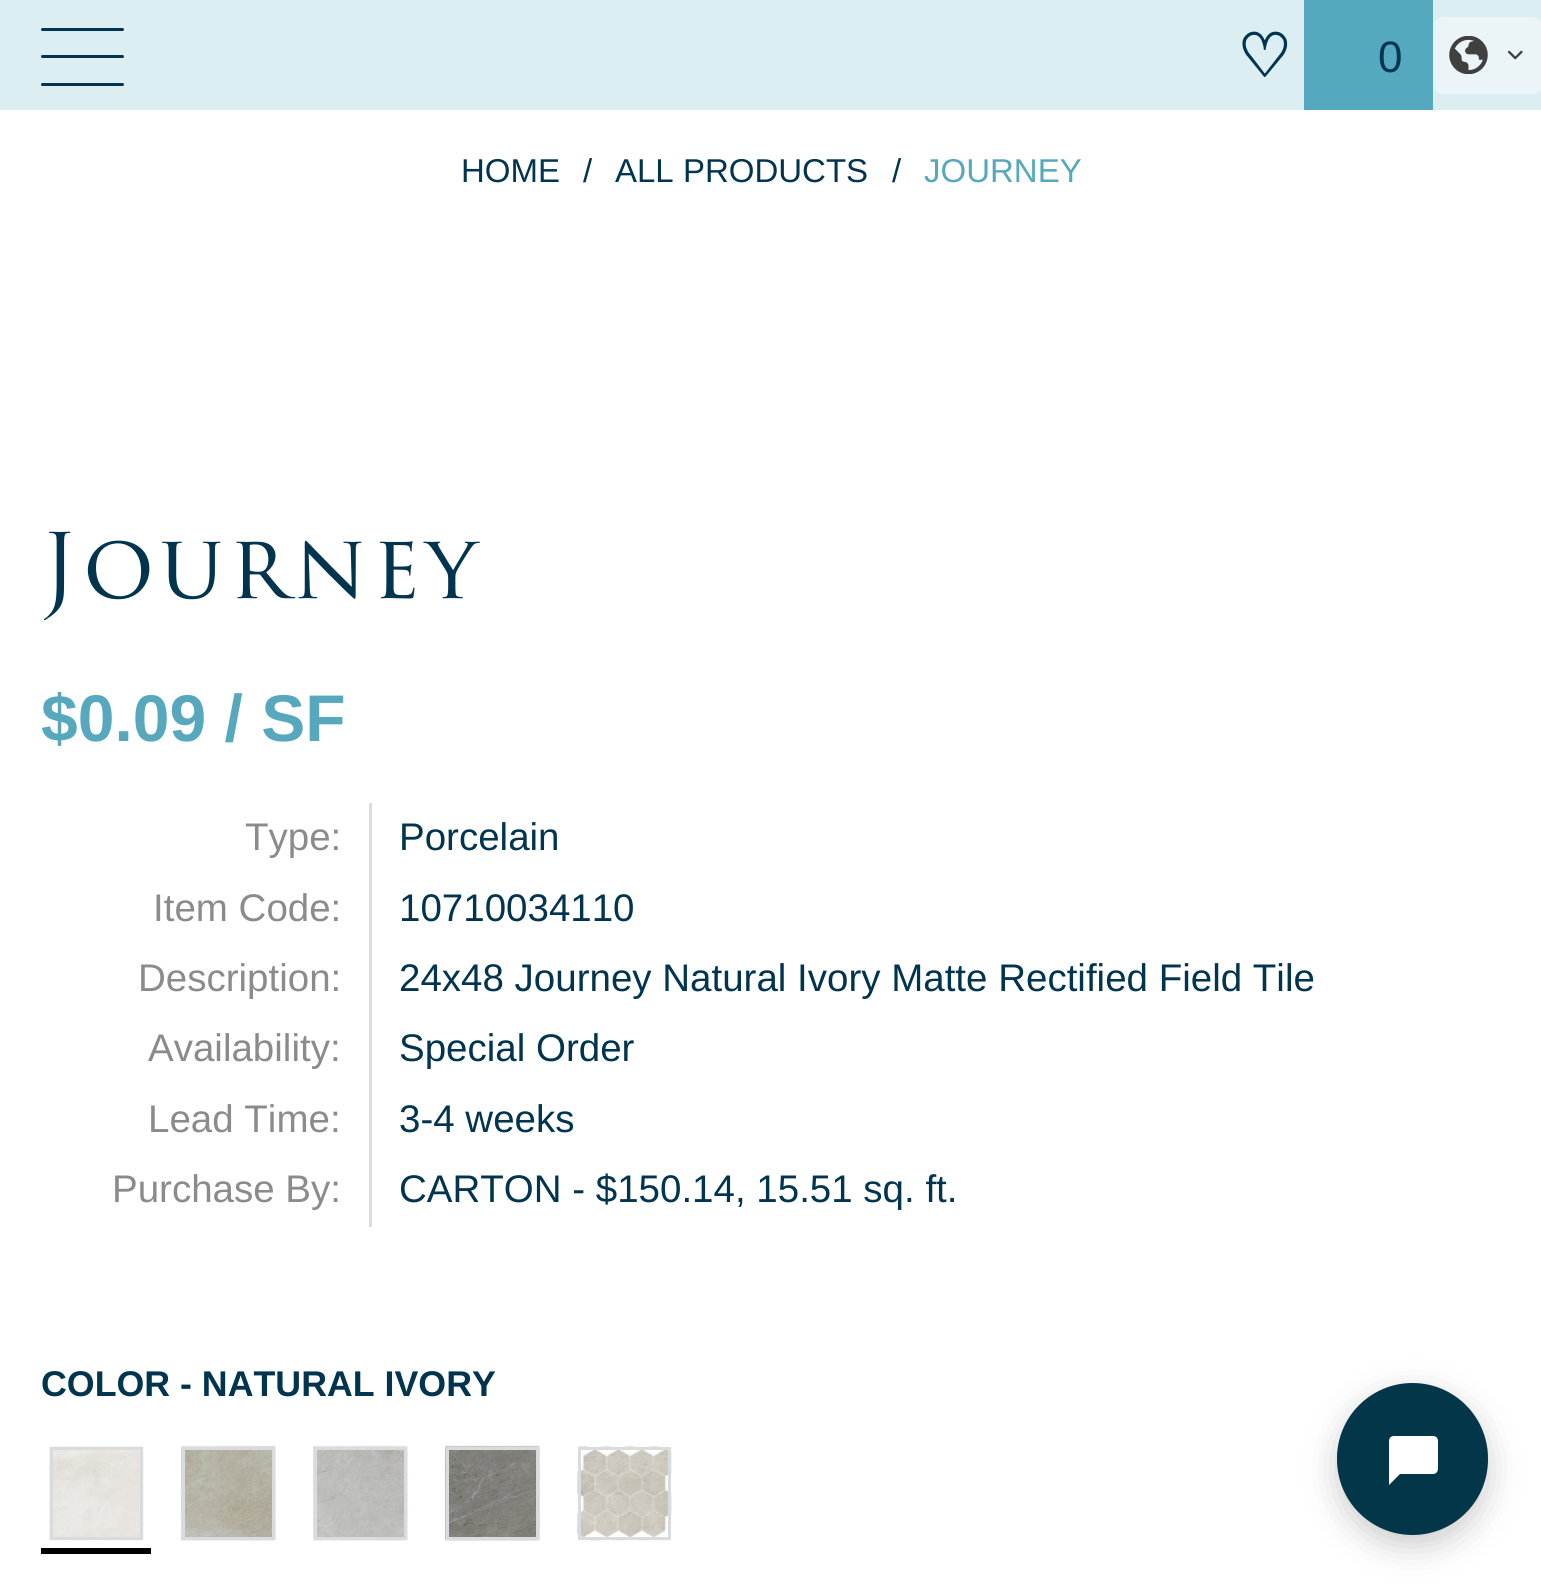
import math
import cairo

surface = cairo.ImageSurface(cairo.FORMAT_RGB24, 1541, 1588)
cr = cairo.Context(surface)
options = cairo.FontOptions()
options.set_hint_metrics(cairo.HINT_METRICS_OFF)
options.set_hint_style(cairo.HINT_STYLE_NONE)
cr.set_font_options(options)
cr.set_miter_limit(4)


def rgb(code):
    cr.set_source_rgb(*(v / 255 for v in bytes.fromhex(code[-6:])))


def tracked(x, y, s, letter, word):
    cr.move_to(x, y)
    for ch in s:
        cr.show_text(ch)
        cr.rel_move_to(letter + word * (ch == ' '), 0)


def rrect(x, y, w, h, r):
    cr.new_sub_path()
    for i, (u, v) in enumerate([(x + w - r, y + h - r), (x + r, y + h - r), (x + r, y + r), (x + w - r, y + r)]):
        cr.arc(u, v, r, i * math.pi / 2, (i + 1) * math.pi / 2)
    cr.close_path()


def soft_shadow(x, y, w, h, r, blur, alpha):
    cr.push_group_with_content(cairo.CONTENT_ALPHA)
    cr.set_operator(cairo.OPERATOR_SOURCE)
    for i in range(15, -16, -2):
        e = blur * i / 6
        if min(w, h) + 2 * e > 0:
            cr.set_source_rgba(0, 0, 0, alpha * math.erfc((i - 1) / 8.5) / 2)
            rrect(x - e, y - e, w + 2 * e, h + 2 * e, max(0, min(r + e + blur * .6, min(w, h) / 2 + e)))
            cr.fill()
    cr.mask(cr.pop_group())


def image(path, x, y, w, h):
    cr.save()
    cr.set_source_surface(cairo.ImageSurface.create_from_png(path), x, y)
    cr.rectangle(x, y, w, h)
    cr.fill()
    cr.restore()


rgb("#ffffff")
cr.paint()
rgb("#ddeef2")
cr.rectangle(0, 0, 1541, 110)
cr.fill()
rgb("#00344f")
rrect(41, 28, 83, 3, 1.5)
cr.fill()
rrect(41, 55, 83, 3, 1.5)
cr.fill()
rrect(41, 83, 83, 3, 1.5)
cr.fill()
rgb("#55a9bf")
cr.rectangle(1304, 0, 129, 110)
cr.fill()
rgb("#ebf5f7")
rrect(1433, 17, 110, 77, 11)
cr.fill()
image("img/1.png", 1449, 36, 39, 38)
image("img/2.png", 1507, 50, 16, 10)
rgb("#dddddd")
cr.rectangle(369, 803, 3, 424)
cr.fill()
rgb("#000000")
cr.rectangle(41, 1548, 110, 6)
cr.fill()
image("img/3.png", 49, 1446, 95, 95)
cr.rectangle(51.5, 1448.5, 90, 90)
rgb("#d9dbdc")
cr.set_line_width(3)
cr.stroke()
image("img/4.png", 181, 1445, 95, 96)
cr.rectangle(183.5, 1448.5, 90, 90)
cr.stroke()
image("img/5.png", 313, 1445, 95, 96)
cr.rectangle(315.5, 1448.5, 90, 90)
cr.stroke()
image("img/6.png", 445, 1445, 95, 96)
cr.rectangle(447.5, 1448.5, 90, 90)
cr.stroke()
image("img/7.png", 577, 1445, 95, 96)
cr.rectangle(579.5, 1448.5, 90, 90)
cr.stroke()
rgb("#000000")
soft_shadow(1337, 1394, 151, 152, 75.5, 16.5, 0.2)
rgb("#04364a")
rrect(1337, 1383, 151, 152, 75.5)
cr.fill()
rgb("#ffffff")
cr.new_path()
cr.move_to(1438, 1468)
cr.curve_to(1438, 1472, 1436, 1474, 1433, 1474)
cr.line_to(1400, 1474)
cr.line_to(1389, 1485)
cr.line_to(1389, 1441)
cr.curve_to(1389, 1438, 1391, 1436, 1394, 1436)
cr.line_to(1433, 1436)
cr.curve_to(1436, 1436, 1438, 1438, 1438, 1441)
cr.close_path()
cr.fill()
cr.select_font_face("DejaVu Sans", cairo.FONT_SLANT_NORMAL, cairo.FONT_WEIGHT_BOLD)
cr.set_font_size(60)
rgb("#00344f")
cr.move_to(1237, 77)
cr.show_text("♡")
cr.select_font_face("Liberation Sans")
cr.set_font_size(44)
tracked(1378, 72, "0", 3, 0)
cr.set_font_size(33)
for x, y, s in [
    (461, 182, "HOME"),
    (583, 182, "/"),
    (615, 182, "ALL PRODUCTS"),
    (892, 182, "/"),
]:
    cr.move_to(x, y)
    cr.show_text(s)
rgb("#57a8bd")
cr.move_to(924, 182)
cr.show_text("JOURNEY")
cr.select_font_face("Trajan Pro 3")
cr.set_font_size(88)
rgb("#00344f")
tracked(41, 598, "Journey", 5.5, 0)
cr.select_font_face("Liberation Sans", cairo.FONT_SLANT_NORMAL, cairo.FONT_WEIGHT_BOLD)
cr.set_font_size(66)
rgb("#57a8bd")
cr.move_to(41, 741)
cr.show_text("$0.09 / SF")
cr.select_font_face("Liberation Sans")
cr.set_font_size(38.5)
rgb("#8c8b8b")
cr.move_to(245, 850)
cr.show_text("Type:")
rgb("#00344f")
cr.move_to(399, 850)
cr.show_text("Porcelain")
rgb("#8c8b8b")
cr.move_to(153, 921)
cr.show_text("Item Code:")
rgb("#00344f")
cr.move_to(399, 921)
cr.show_text("10710034110")
rgb("#8c8b8b")
cr.move_to(138, 991)
cr.show_text("Description:")
rgb("#00344f")
cr.move_to(399, 991)
cr.show_text("24x48 Journey Natural Ivory Matte Rectified Field Tile")
rgb("#8c8b8b")
cr.move_to(148, 1061)
cr.show_text("Availability:")
rgb("#00344f")
cr.move_to(399, 1061)
cr.show_text("Special Order")
rgb("#8c8b8b")
cr.move_to(148, 1132)
cr.show_text("Lead Time:")
rgb("#00344f")
cr.move_to(399, 1132)
cr.show_text("3-4 weeks")
rgb("#8c8b8b")
cr.move_to(112, 1202)
cr.show_text("Purchase By:")
rgb("#00344f")
cr.move_to(399, 1202)
cr.show_text("CARTON - $150.14, 15.51 sq. ft.")
cr.select_font_face("Liberation Sans", cairo.FONT_SLANT_NORMAL, cairo.FONT_WEIGHT_BOLD)
cr.set_font_size(35.75)
cr.move_to(41, 1396)
cr.show_text("COLOR - NATURAL IVORY")
surface.write_to_png("page.png")
